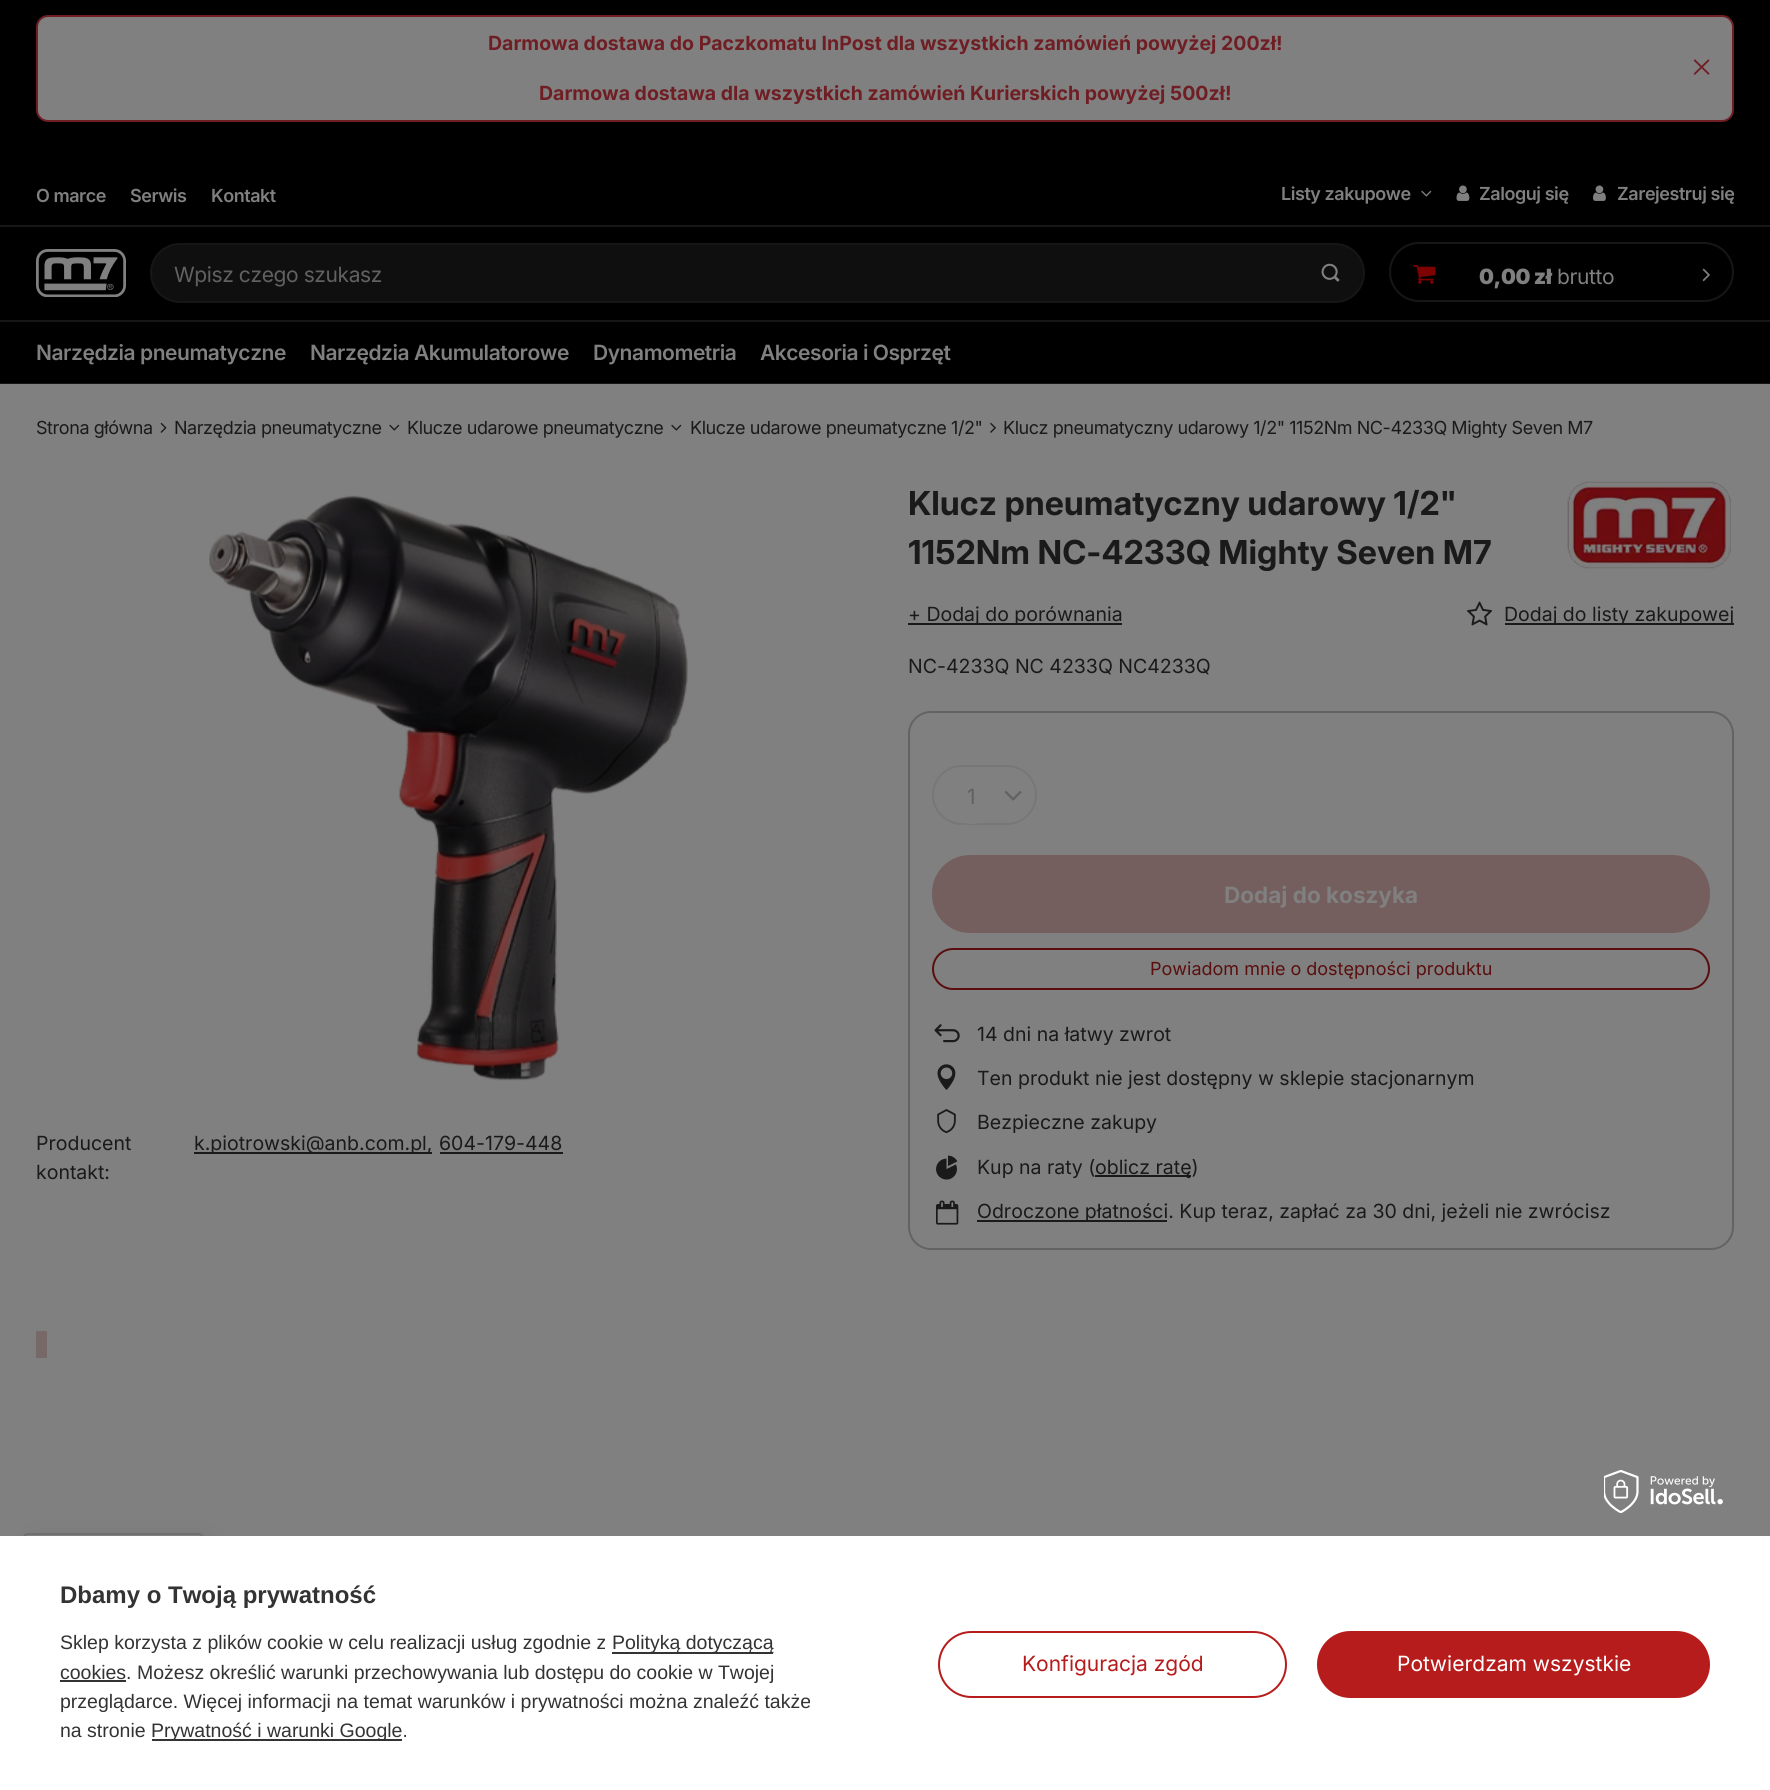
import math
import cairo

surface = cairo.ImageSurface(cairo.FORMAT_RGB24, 1770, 1790)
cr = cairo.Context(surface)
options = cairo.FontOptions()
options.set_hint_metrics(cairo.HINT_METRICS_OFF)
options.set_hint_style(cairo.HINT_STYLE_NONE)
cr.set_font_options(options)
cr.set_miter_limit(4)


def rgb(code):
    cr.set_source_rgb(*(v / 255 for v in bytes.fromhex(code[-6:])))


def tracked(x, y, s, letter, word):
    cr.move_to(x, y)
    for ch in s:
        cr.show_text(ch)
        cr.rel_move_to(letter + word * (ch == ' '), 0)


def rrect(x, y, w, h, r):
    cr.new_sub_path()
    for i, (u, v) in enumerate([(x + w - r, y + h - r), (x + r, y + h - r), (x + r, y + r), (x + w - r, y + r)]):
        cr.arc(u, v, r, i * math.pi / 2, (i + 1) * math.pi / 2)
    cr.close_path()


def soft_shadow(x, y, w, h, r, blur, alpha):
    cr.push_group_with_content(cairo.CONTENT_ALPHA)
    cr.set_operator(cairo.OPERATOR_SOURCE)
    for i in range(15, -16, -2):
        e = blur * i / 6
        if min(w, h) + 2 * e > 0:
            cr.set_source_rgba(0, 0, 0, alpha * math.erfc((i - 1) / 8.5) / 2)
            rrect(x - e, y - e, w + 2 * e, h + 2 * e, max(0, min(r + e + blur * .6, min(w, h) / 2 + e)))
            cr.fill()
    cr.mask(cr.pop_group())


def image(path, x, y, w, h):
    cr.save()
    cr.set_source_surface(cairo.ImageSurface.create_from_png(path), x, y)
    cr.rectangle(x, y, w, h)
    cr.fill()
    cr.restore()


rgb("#808080")
cr.paint()
rgb("#000000")
cr.rectangle(0, 0, 1770, 383)
cr.fill()
rgb("#808080")
rrect(37, 16, 1696, 105, 11)
cr.fill_preserve()
rgb("#6f1e24")
cr.stroke()
image("img/1.png", 1693, 59, 17, 16)
rgb("#161616")
cr.rectangle(0, 225, 1770, 2)
cr.fill()
image("img/2.png", 1421, 190, 11, 7)
image("img/3.png", 1456, 185, 14, 16)
image("img/4.png", 1593, 185, 13, 16)
image("img/5.png", 36, 249, 90, 48)
rgb("#0f0f0f")
rrect(151, 244, 1213, 58, 29)
cr.fill_preserve()
rgb("#161616")
cr.stroke()
image("img/6.png", 1321, 263, 19, 19)
rrect(1390, 243, 343, 58, 29)
cr.stroke()
image("img/7.png", 1413, 265, 23, 19)
image("img/8.png", 1702, 268, 8, 14)
cr.rectangle(0, 320, 1770, 2)
cr.fill()
cr.rectangle(0, 383, 1770, 1)
cr.fill()
image("img/9.png", 160, 422, 7, 11)
image("img/10.png", 389, 424, 11, 7)
image("img/10.png", 671, 424, 11, 7)
image("img/11.png", 990, 422, 6, 11)
image("img/12.png", 209, 495, 479, 586)
image("img/13.png", 1567, 481, 164, 88)
rgb("#1a1a1a")
cr.rectangle(908, 623, 214, 2)
cr.fill()
image("img/14.png", 1467, 601, 25, 25)
for x, y, w, h, color in [
    (1505, 623, 229, 2, "#1a1a1a"),
    (194, 1152, 238, 2, "#1a1a1a"),
    (440, 1152, 123, 2, "#1a1a1a"),
]:
    rgb(color)
    cr.rectangle(x, y, w, h)
    cr.fill()
rrect(909, 712, 824, 537, 22)
rgb("#626464")
cr.stroke()
rrect(933, 766, 103, 58, 29)
rgb("#777778")
cr.stroke()
image("img/15.png", 1004, 791, 18, 10)
rgb("#808080")
rrect(948, 767, 47, 57, 23.5)
cr.fill()
rgb("#755e5e")
rrect(933, 856, 776, 76, 37)
cr.fill_preserve()
cr.stroke()
rrect(933, 949, 776, 40, 20)
rgb("#5b0e0e")
cr.stroke()
image("img/16.png", 934, 1024, 26, 19)
image("img/17.png", 937, 1064, 19, 26)
image("img/18.png", 937, 1109, 19, 25)
image("img/19.png", 936, 1155, 22, 25)
rgb("#1a1a1a")
cr.rectangle(1095, 1175, 96, 2)
cr.fill()
image("img/20.png", 936, 1200, 23, 25)
cr.rectangle(977, 1220, 190, 2)
cr.fill()
rgb("#786969")
cr.rectangle(36, 1331, 11, 27)
cr.fill()
rgb("#000000")
soft_shadow(30, 1541, 182, 235, 5, 11, 0.1)
rgb("#808080")
rrect(24, 1534, 179, 234, 4)
cr.fill_preserve()
rgb("#6f6f6f")
cr.stroke()
rgb("#ffffff")
cr.rectangle(0, 1536, 1770, 254)
cr.fill()
image("img/21.png", 1604, 1470, 119, 43)
for x, y, w, h, color in [
    (612, 1652, 161, 2, "#333333"),
    (60, 1680, 66, 2, "#333333"),
    (152, 1739, 250, 2, "#333333"),
]:
    rgb(color)
    cr.rectangle(x, y, w, h)
    cr.fill()
rrect(939, 1632, 347, 65, 32.5)
rgb("#b61c1c")
cr.stroke()
rrect(1318, 1632, 391, 65, 32.5)
cr.fill_preserve()
cr.stroke()
cr.select_font_face("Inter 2", cairo.FONT_SLANT_NORMAL, cairo.FONT_WEIGHT_BOLD)
cr.set_font_size(19.5)
rgb("#6f1e24")
cr.move_to(488, 50)
cr.show_text("Darmowa dostawa do Paczkomatu InPost dla wszystkich zamówień powyżej 200zł!")
cr.move_to(539, 100)
cr.show_text("Darmowa dostawa dla wszystkich zamówień Kurierskich powyżej 500zł!")
cr.select_font_face("Inter SemiBold")
cr.set_font_size(18)
rgb("#808080")
for x, y, s in [
    (36, 202, "O marce"),
    (130, 202, "Serwis"),
    (211, 202, "Kontakt"),
    (1281, 200, "Listy zakupowe"),
    (1479, 200, "Zaloguj się"),
    (1617, 200, "Zarejestruj się"),
]:
    tracked(x, y, s, -0.45, 0)
cr.select_font_face("Inter")
cr.set_font_size(21)
rgb("#616161")
tracked(174, 282, "Wpisz czego szukasz", -0.4, 0)
cr.select_font_face("Inter Black")
rgb("#808080")
tracked(1479, 284, "0,00 zł", -0.4, 0)
cr.select_font_face("Inter")
tracked(1557, 284, "brutto", -0.4, 0)
cr.select_font_face("Inter SemiBold")
for x, y, s in [
    (36, 360, "Narzędzia pneumatyczne"),
    (310, 360, "Narzędzia Akumulatorowe"),
    (593, 360, "Dynamometria"),
    (760, 360, "Akcesoria i Osprzęt"),
]:
    tracked(x, y, s, -0.45, 0)
cr.select_font_face("Inter")
cr.set_font_size(18)
rgb("#1a1a1a")
for x, y, s in [
    (36, 434, "Strona główna"),
    (174, 434, "Narzędzia pneumatyczne"),
    (407, 434, "Klucze udarowe pneumatyczne"),
    (690, 434, "Klucze udarowe pneumatyczne 1/2\""),
    (1003, 434, "Klucz pneumatyczny udarowy 1/2\" 1152Nm NC-4233Q Mighty Seven M7"),
]:
    tracked(x, y, s, -0.45, 0)
cr.select_font_face("Inter", cairo.FONT_SLANT_NORMAL, cairo.FONT_WEIGHT_BOLD)
cr.set_font_size(33)
cr.move_to(908, 515)
cr.show_text("Klucz pneumatyczny udarowy 1/2\"")
cr.move_to(908, 564)
cr.show_text("1152Nm NC-4233Q Mighty Seven M7")
cr.select_font_face("Inter")
cr.set_font_size(19.5)
for x, y, s in [
    (908, 621, "+ Dodaj do porównania"),
    (1504, 621, "Dodaj do listy zakupowej"),
    (908, 673, "NC-4233Q NC 4233Q NC4233Q"),
    (36, 1150, "Producent"),
    (36, 1179, "kontakt:"),
    (194, 1150, "k.piotrowski@anb.com.pl,"),
    (439, 1150, "604-179-448"),
]:
    cr.move_to(x, y)
    cr.show_text(s)
cr.set_font_size(21)
rgb("#616161")
cr.move_to(967, 804)
cr.show_text("1")
cr.select_font_face("Inter 2", cairo.FONT_SLANT_NORMAL, cairo.FONT_WEIGHT_BOLD)
cr.set_font_size(22.5)
rgb("#808080")
cr.move_to(1224, 903)
cr.show_text("Dodaj do koszyka")
cr.select_font_face("Inter")
cr.set_font_size(18)
rgb("#5b0e0e")
cr.move_to(1150, 975)
cr.show_text("Powiadom mnie o dostępności produktu")
cr.set_font_size(19.5)
rgb("#1a1a1a")
for x, y, s in [
    (977, 1041, "14 dni na łatwy zwrot"),
    (977, 1085, "Ten produkt nie jest dostępny w sklepie stacjonarnym"),
    (977, 1129, "Bezpieczne zakupy"),
    (977, 1174, "Kup na raty ("),
    (1095, 1174, "oblicz ratę)"),
    (977, 1218, "Odroczone płatności. Kup teraz, zapłać za 30 dni, jeżeli nie zwrócisz"),
]:
    cr.move_to(x, y)
    cr.show_text(s)
cr.select_font_face("Liberation Sans", cairo.FONT_SLANT_NORMAL, cairo.FONT_WEIGHT_BOLD)
cr.set_font_size(24)
rgb("#333333")
cr.move_to(60, 1603)
cr.show_text("Dbamy o Twoją prywatność")
cr.select_font_face("Liberation Sans")
cr.set_font_size(19.5)
for x, y, s in [
    (60, 1649, "Sklep korzysta z plików cookie w celu realizacji usług zgodnie z"),
    (612, 1649, "Polityką dotyczącą"),
    (60, 1679, "cookies. Możesz określić warunki przechowywania lub dostępu do cookie w Twojej"),
    (60, 1708, "przeglądarce. Więcej informacji na temat warunków i prywatności można znaleźć także"),
    (60, 1737, "na stronie"),
    (151, 1737, "Prywatność i warunki Google."),
]:
    cr.move_to(x, y)
    cr.show_text(s)
cr.select_font_face("Inter")
cr.set_font_size(21)
rgb("#b61c1c")
cr.move_to(1022, 1671)
cr.show_text("Konfiguracja zgód")
rgb("#ffffff")
cr.move_to(1397, 1671)
cr.show_text("Potwierdzam wszystkie")
surface.write_to_png("page.png")
